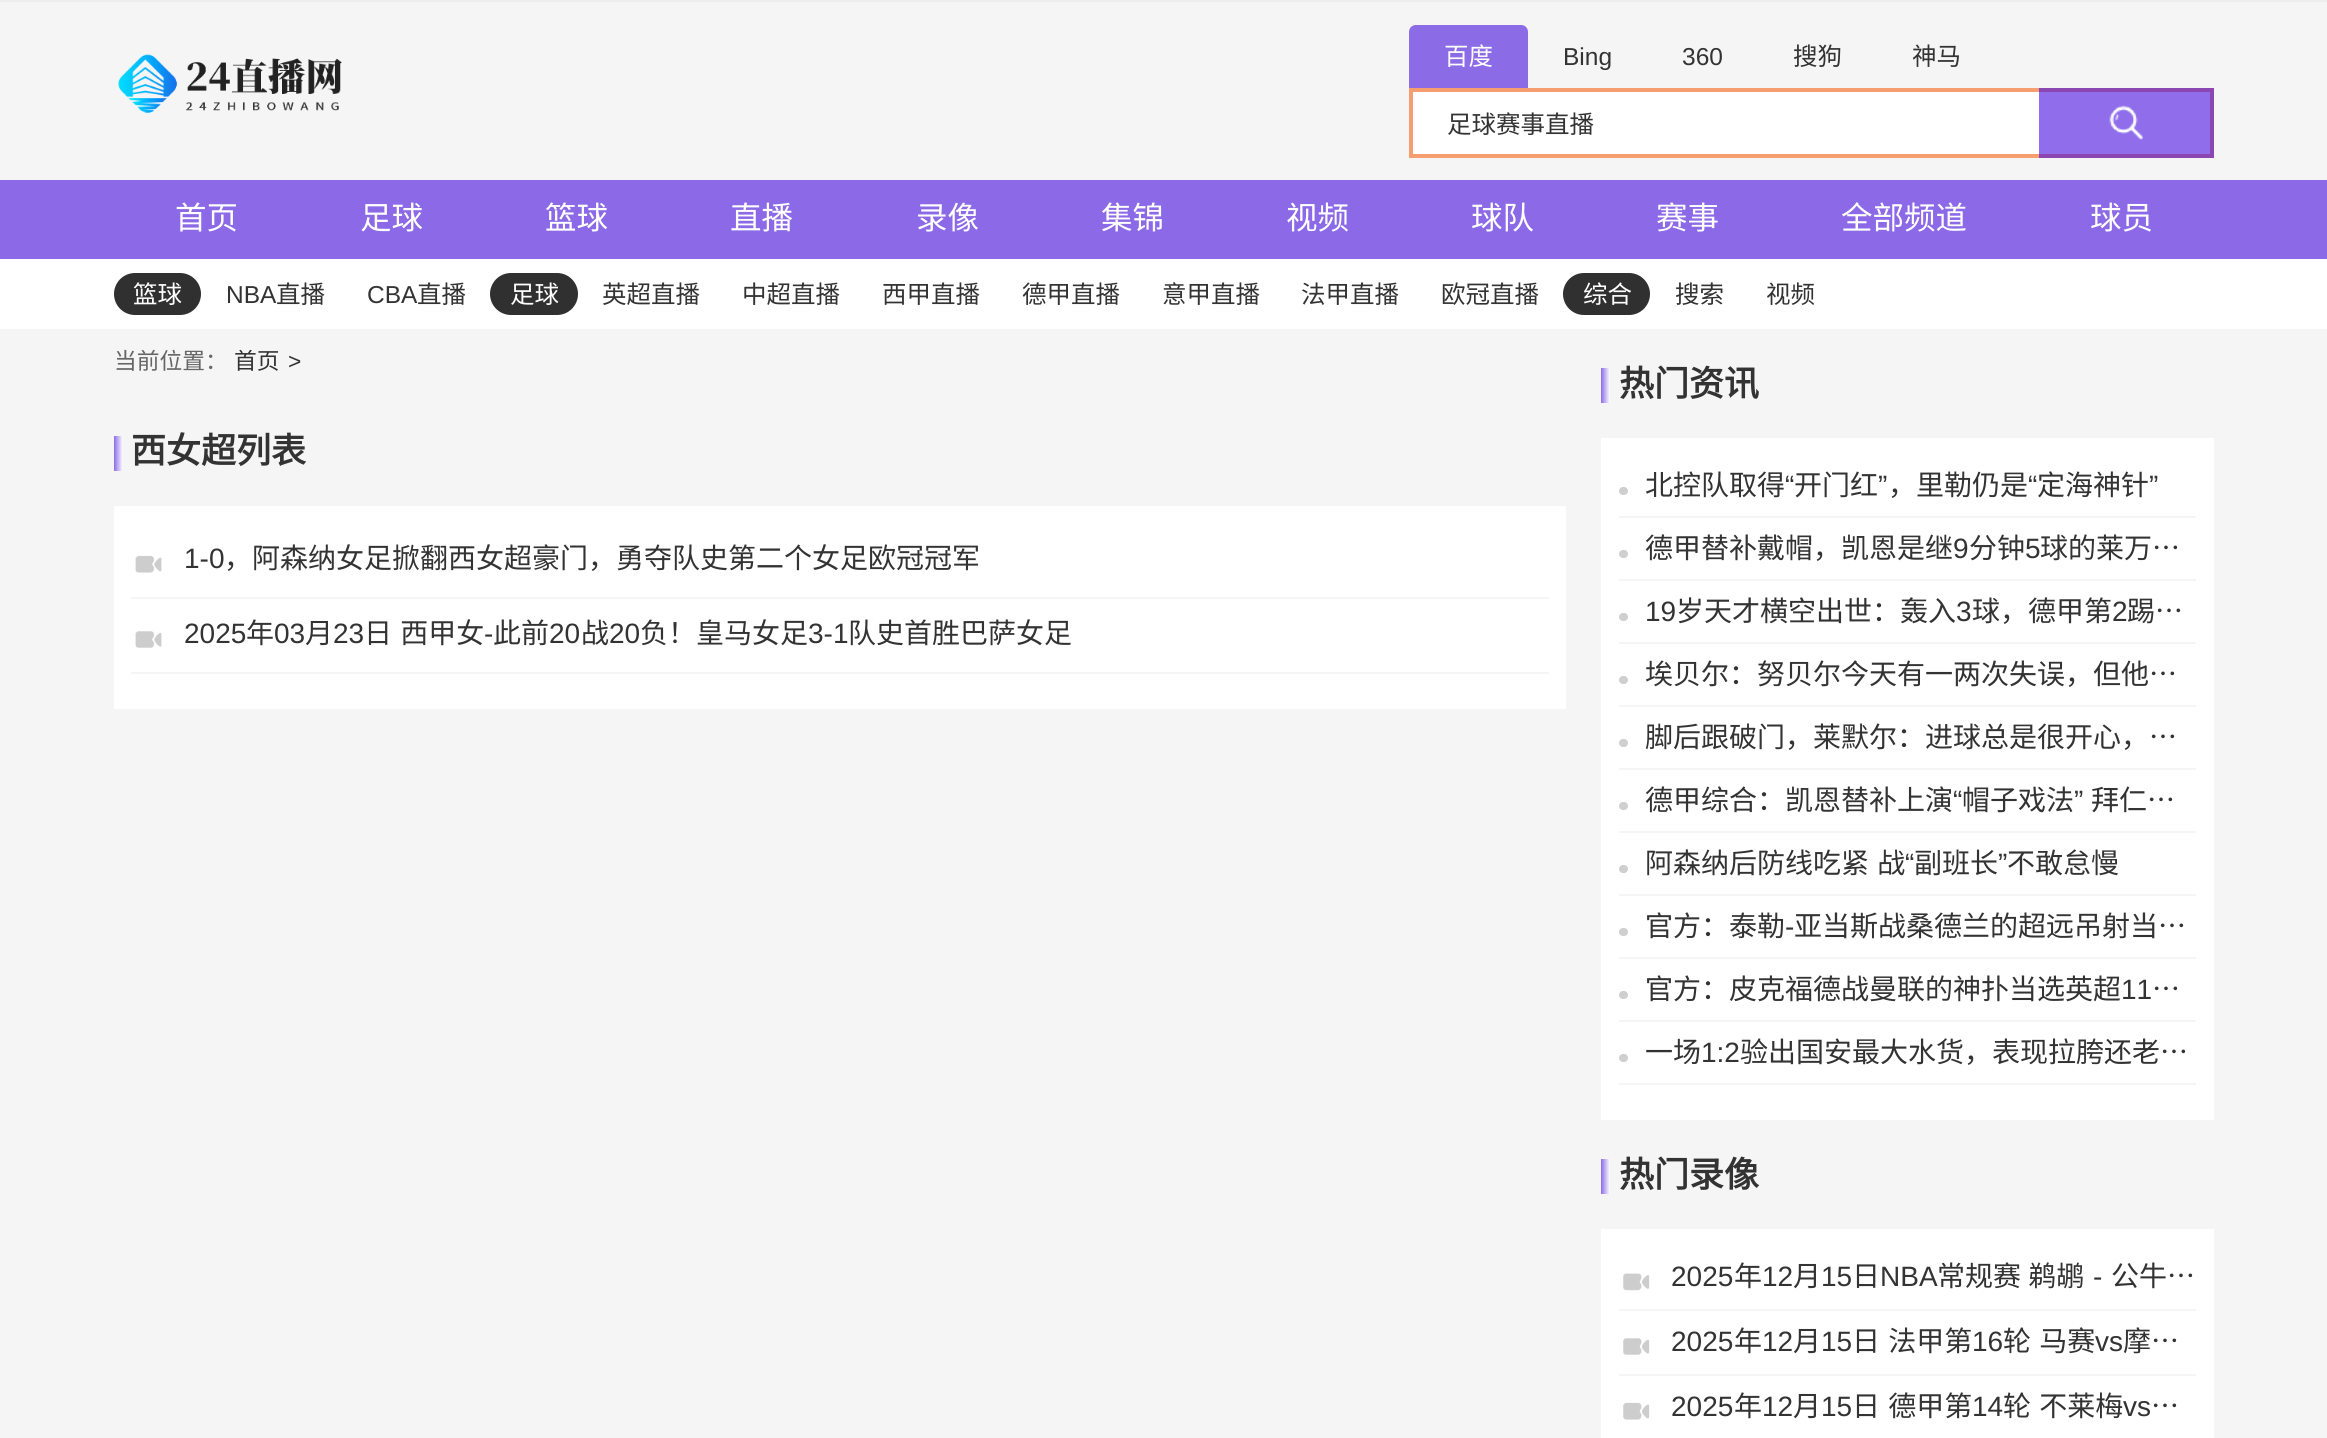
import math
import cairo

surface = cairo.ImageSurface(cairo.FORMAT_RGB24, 2327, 1438)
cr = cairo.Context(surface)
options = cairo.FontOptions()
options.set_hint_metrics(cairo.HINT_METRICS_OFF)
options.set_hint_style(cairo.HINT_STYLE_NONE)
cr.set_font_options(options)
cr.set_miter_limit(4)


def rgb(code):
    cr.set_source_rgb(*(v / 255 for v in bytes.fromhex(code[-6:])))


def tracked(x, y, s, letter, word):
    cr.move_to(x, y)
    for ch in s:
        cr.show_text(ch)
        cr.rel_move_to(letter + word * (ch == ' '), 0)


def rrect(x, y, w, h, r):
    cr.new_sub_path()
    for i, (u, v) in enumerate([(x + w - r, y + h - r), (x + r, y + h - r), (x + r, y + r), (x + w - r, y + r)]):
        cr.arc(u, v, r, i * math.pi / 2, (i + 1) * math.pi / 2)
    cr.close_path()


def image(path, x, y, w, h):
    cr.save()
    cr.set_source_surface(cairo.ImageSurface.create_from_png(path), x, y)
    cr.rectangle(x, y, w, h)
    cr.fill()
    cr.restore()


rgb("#f5f5f6")
cr.paint()
rgb("#ededed")
cr.rectangle(0, 0, 2327, 2)
cr.fill()
image("img/1.png", 118, 54, 224, 59)
rgb("#8c6be7")
cr.new_path()
cr.move_to(1416, 25)
cr.line_to(1521, 25)
cr.curve_to(1525, 25, 1528, 28, 1528, 32)
cr.line_to(1528, 88)
cr.line_to(1409, 88)
cr.line_to(1409, 32)
cr.curve_to(1409, 28, 1412, 25, 1416, 25)
cr.close_path()
cr.fill()
rgb("#ffffff")
cr.rectangle(1411, 90, 801, 66)
cr.fill_preserve()
rgb("#f79e70")
cr.set_line_width(4)
cr.stroke()
cr.set_source_rgba(0.271, 0.051, 0.867, 0.6)
cr.rectangle(2039, 88, 175, 70)
cr.fill()
image("img/2.png", 2109, 105, 34, 35)
rgb("#8c6ae7")
cr.rectangle(0, 180, 2327, 79)
cr.fill()
rgb("#ffffff")
cr.rectangle(0, 259, 2327, 70)
cr.fill()
rgb("#303030")
rrect(115, 274, 85, 40, 20)
cr.fill_preserve()
cr.set_line_width(2)
cr.stroke()
rrect(491, 274, 86, 40, 20)
cr.fill_preserve()
cr.stroke()
rrect(1564, 274, 85, 40, 20)
cr.fill_preserve()
cr.stroke()
gradient = cairo.LinearGradient(114, 453, 123, 453)
gradient.add_color_stop_rgba(0, 0.549, 0.42, 0.906, 1)
gradient.add_color_stop_rgba(1, 1, 1, 1, 1)
cr.set_source(gradient)
cr.rectangle(114, 436, 9, 35)
cr.fill()
rgb("#ffffff")
cr.rectangle(114, 506, 1452, 203)
cr.fill()
rgb("#f5f5f5")
cr.rectangle(131, 597, 1418, 2)
cr.fill()
image("img/3.png", 135, 555, 27, 18)
cr.rectangle(131, 672, 1418, 2)
cr.fill()
image("img/4.png", 135, 631, 27, 17)
gradient = cairo.LinearGradient(1601, 385, 1610, 385)
gradient.add_color_stop_rgba(0, 0.549, 0.42, 0.906, 1)
gradient.add_color_stop_rgba(1, 1, 1, 1, 1)
cr.set_source(gradient)
cr.rectangle(1601, 368, 9, 35)
cr.fill()
rgb("#ffffff")
cr.rectangle(1601, 438, 613, 682)
cr.fill()
rgb("#f5f5f5")
cr.rectangle(1619, 516, 577, 2)
cr.fill()
rgb("#cfcfcf")
rrect(1619, 487, 9, 8, 4)
cr.fill()
rgb("#f5f5f5")
cr.rectangle(1619, 579, 577, 2)
cr.fill()
rgb("#cfcfcf")
rrect(1619, 550, 9, 8, 4)
cr.fill()
rgb("#f5f5f5")
cr.rectangle(1619, 642, 577, 2)
cr.fill()
rgb("#cfcfcf")
rrect(1619, 613, 9, 8, 4)
cr.fill()
rgb("#f5f5f5")
cr.rectangle(1619, 705, 577, 2)
cr.fill()
rgb("#cfcfcf")
rrect(1619, 676, 9, 8, 4)
cr.fill()
rgb("#f5f5f5")
cr.rectangle(1619, 768, 577, 2)
cr.fill()
rgb("#cfcfcf")
rrect(1619, 739, 9, 8, 4)
cr.fill()
rgb("#f5f5f5")
cr.rectangle(1619, 831, 577, 2)
cr.fill()
rgb("#cfcfcf")
rrect(1619, 802, 9, 8, 4)
cr.fill()
rgb("#f5f5f5")
cr.rectangle(1619, 894, 577, 2)
cr.fill()
rgb("#cfcfcf")
rrect(1619, 865, 9, 8, 4)
cr.fill()
rgb("#f5f5f5")
cr.rectangle(1619, 957, 577, 2)
cr.fill()
rgb("#cfcfcf")
rrect(1619, 928, 9, 8, 4)
cr.fill()
rgb("#f5f5f5")
cr.rectangle(1619, 1020, 577, 2)
cr.fill()
rgb("#cfcfcf")
rrect(1619, 991, 9, 8, 4)
cr.fill()
rgb("#f5f5f5")
cr.rectangle(1619, 1083, 577, 2)
cr.fill()
rgb("#cfcfcf")
rrect(1619, 1054, 9, 8, 4)
cr.fill()
gradient = cairo.LinearGradient(1601, 1176, 1610, 1176)
gradient.add_color_stop_rgba(0, 0.549, 0.42, 0.906, 1)
gradient.add_color_stop_rgba(1, 1, 1, 1, 1)
cr.set_source(gradient)
cr.rectangle(1601, 1159, 9, 35)
cr.fill()
rgb("#ffffff")
cr.rectangle(1601, 1229, 613, 209)
cr.fill()
rgb("#f5f5f5")
cr.rectangle(1619, 1309, 577, 2)
cr.fill()
image("img/5.png", 1623, 1273, 27, 18)
cr.rectangle(1619, 1374, 577, 2)
cr.fill()
image("img/6.png", 1623, 1338, 27, 17)
image("img/7.png", 1623, 1402, 27, 18)
cr.select_font_face("Noto Sans CJK SC")
cr.set_font_size(24.5)
rgb("#ffffff")
cr.move_to(1444, 65)
cr.show_text("百度")
cr.select_font_face("Liberation Sans")
rgb("#333333")
cr.move_to(1563, 65)
cr.show_text("Bing")
cr.move_to(1682, 65)
cr.show_text("360")
cr.select_font_face("Noto Sans CJK SC")
for x, y, s in [
    (1793, 65, "搜狗"),
    (1912, 65, "神马"),
    (1447, 133, "足球赛事直播"),
]:
    cr.move_to(x, y)
    cr.show_text(s)
cr.set_font_size(31.5)
rgb("#ffffff")
for x, y, s in [
    (175, 229, "首页"),
    (360, 229, "足球"),
    (545, 229, "篮球"),
    (730, 229, "直播"),
    (916, 229, "录像"),
    (1101, 229, "集锦"),
    (1286, 229, "视频"),
    (1471, 229, "球队"),
    (1656, 229, "赛事"),
    (1841, 229, "全部频道"),
    (2090, 229, "球员"),
]:
    cr.move_to(x, y)
    cr.show_text(s)
cr.set_font_size(24.5)
cr.move_to(133, 303)
cr.show_text("篮球")
cr.select_font_face("Liberation Sans")
rgb("#333333")
cr.move_to(226, 303)
cr.show_text("NBA")
cr.select_font_face("Noto Sans CJK SC")
cr.move_to(276, 303)
cr.show_text("直播")
cr.select_font_face("Liberation Sans")
cr.move_to(367, 303)
cr.show_text("CBA")
cr.select_font_face("Noto Sans CJK SC")
cr.move_to(417, 303)
cr.show_text("直播")
rgb("#ffffff")
cr.move_to(510, 303)
cr.show_text("足球")
rgb("#333333")
for x, y, s in [
    (602, 303, "英超直播"),
    (742, 303, "中超直播"),
    (882, 303, "西甲直播"),
    (1022, 303, "德甲直播"),
    (1162, 303, "意甲直播"),
    (1301, 303, "法甲直播"),
    (1441, 303, "欧冠直播"),
]:
    cr.move_to(x, y)
    cr.show_text(s)
rgb("#ffffff")
cr.move_to(1583, 303)
cr.show_text("综合")
rgb("#333333")
cr.move_to(1675, 303)
cr.show_text("搜索")
cr.move_to(1766, 303)
cr.show_text("视频")
cr.set_font_size(22.75)
rgb("#666666")
cr.move_to(114, 369)
cr.show_text("当前位置：")
rgb("#333333")
cr.move_to(234, 369)
cr.show_text("首页")
cr.select_font_face("Liberation Sans")
cr.move_to(288, 369)
cr.show_text(">")
cr.select_font_face("Noto Sans CJK SC", cairo.FONT_SLANT_NORMAL, cairo.FONT_WEIGHT_BOLD)
cr.set_font_size(35)
cr.move_to(131, 463)
cr.show_text("西女超列表")
cr.select_font_face("Liberation Sans")
cr.set_font_size(28)
cr.move_to(184, 568)
cr.show_text("1-0")
cr.select_font_face("Noto Sans CJK SC")
cr.move_to(224, 568)
cr.show_text("，阿森纳女足掀翻西女超豪门，勇夺队史第二个女足欧冠冠军")
cr.select_font_face("Liberation Sans")
cr.move_to(184, 643)
cr.show_text("2025")
cr.select_font_face("Noto Sans CJK SC")
cr.move_to(246, 643)
cr.show_text("年")
cr.select_font_face("Liberation Sans")
cr.move_to(274, 643)
cr.show_text("03")
cr.select_font_face("Noto Sans CJK SC")
cr.move_to(305, 643)
cr.show_text("月")
cr.select_font_face("Liberation Sans")
cr.move_to(333, 643)
cr.show_text("23")
cr.select_font_face("Noto Sans CJK SC")
tracked(364, 643, "日 西甲女", 0, 2)
cr.select_font_face("Liberation Sans")
cr.move_to(484, 643)
cr.show_text("-")
cr.select_font_face("Noto Sans CJK SC")
cr.move_to(493, 643)
cr.show_text("此前")
cr.select_font_face("Liberation Sans")
cr.move_to(549, 643)
cr.show_text("20")
cr.select_font_face("Noto Sans CJK SC")
cr.move_to(581, 643)
cr.show_text("战")
cr.select_font_face("Liberation Sans")
cr.move_to(609, 643)
cr.show_text("20")
cr.select_font_face("Noto Sans CJK SC")
cr.move_to(640, 643)
cr.show_text("负！皇马女足")
cr.select_font_face("Liberation Sans")
cr.move_to(808, 643)
cr.show_text("3-1")
cr.select_font_face("Noto Sans CJK SC")
cr.move_to(848, 643)
cr.show_text("队史首胜巴萨女足")
cr.select_font_face("Noto Sans CJK SC", cairo.FONT_SLANT_NORMAL, cairo.FONT_WEIGHT_BOLD)
cr.set_font_size(35)
cr.move_to(1619, 396)
cr.show_text("热门资讯")
cr.select_font_face("Noto Sans CJK SC")
cr.set_font_size(28)
cr.move_to(1645, 495)
cr.show_text("北控队取得")
cr.select_font_face("Liberation Sans")
cr.move_to(1785, 495)
cr.show_text("“")
cr.select_font_face("Noto Sans CJK SC")
cr.move_to(1794, 495)
cr.show_text("开门红")
cr.select_font_face("Liberation Sans")
cr.move_to(1878, 495)
cr.show_text("”")
cr.select_font_face("Noto Sans CJK SC")
cr.move_to(1888, 495)
cr.show_text("，里勒仍是")
cr.select_font_face("Liberation Sans")
cr.move_to(2028, 495)
cr.show_text("“")
cr.select_font_face("Noto Sans CJK SC")
cr.move_to(2037, 495)
cr.show_text("定海神针")
cr.select_font_face("Liberation Sans")
cr.move_to(2149, 495)
cr.show_text("”")
cr.select_font_face("Noto Sans CJK SC")
cr.move_to(1645, 558)
cr.show_text("德甲替补戴帽，凯恩是继")
cr.select_font_face("Liberation Sans")
cr.move_to(1953, 558)
cr.show_text("9")
cr.select_font_face("Noto Sans CJK SC")
cr.move_to(1969, 558)
cr.show_text("分钟")
cr.select_font_face("Liberation Sans")
cr.move_to(2025, 558)
cr.show_text("5")
cr.select_font_face("Noto Sans CJK SC")
cr.move_to(2040, 558)
cr.show_text("球的莱万…")
cr.select_font_face("Liberation Sans")
cr.move_to(1645, 621)
cr.show_text("19")
cr.select_font_face("Noto Sans CJK SC")
cr.move_to(1676, 621)
cr.show_text("岁天才横空出世：轰入")
cr.select_font_face("Liberation Sans")
cr.move_to(1956, 621)
cr.show_text("3")
cr.select_font_face("Noto Sans CJK SC")
cr.move_to(1972, 621)
cr.show_text("球，德甲第")
cr.select_font_face("Liberation Sans")
cr.move_to(2112, 621)
cr.show_text("2")
cr.select_font_face("Noto Sans CJK SC")
for x, y, s in [
    (2127, 621, "踢…"),
    (1645, 684, "埃贝尔：努贝尔今天有一两次失误，但他…"),
    (1645, 747, "脚后跟破门，莱默尔：进球总是很开心，…"),
    (1645, 810, "德甲综合：凯恩替补上演"),
]:
    cr.move_to(x, y)
    cr.show_text(s)
cr.select_font_face("Liberation Sans")
cr.move_to(1953, 810)
cr.show_text("“")
cr.select_font_face("Noto Sans CJK SC")
cr.move_to(1962, 810)
cr.show_text("帽子戏法")
cr.select_font_face("Liberation Sans")
cr.move_to(2074, 810)
cr.show_text("”")
cr.select_font_face("Noto Sans CJK SC")
cr.move_to(2091, 810)
cr.show_text("拜仁…")
tracked(1645, 873, "阿森纳后防线吃紧 战", 0, 2)
cr.select_font_face("Liberation Sans")
cr.move_to(1905, 873)
cr.show_text("“")
cr.select_font_face("Noto Sans CJK SC")
cr.move_to(1914, 873)
cr.show_text("副班长")
cr.select_font_face("Liberation Sans")
cr.move_to(1998, 873)
cr.show_text("”")
cr.select_font_face("Noto Sans CJK SC")
cr.move_to(2007, 873)
cr.show_text("不敢怠慢")
cr.move_to(1645, 936)
cr.show_text("官方：泰勒")
cr.select_font_face("Liberation Sans")
cr.move_to(1785, 936)
cr.show_text("-")
cr.select_font_face("Noto Sans CJK SC")
cr.move_to(1794, 936)
cr.show_text("亚当斯战桑德兰的超远吊射当…")
cr.move_to(1645, 999)
cr.show_text("官方：皮克福德战曼联的神扑当选英超")
cr.select_font_face("Liberation Sans")
cr.move_to(2121, 999)
cr.show_text("11")
cr.select_font_face("Noto Sans CJK SC")
cr.move_to(2152, 999)
cr.show_text("…")
cr.move_to(1645, 1062)
cr.show_text("一场")
cr.select_font_face("Liberation Sans")
cr.move_to(1701, 1062)
cr.show_text("1:2")
cr.select_font_face("Noto Sans CJK SC")
cr.move_to(1740, 1062)
cr.show_text("验出国安最大水货，表现拉胯还老…")
cr.select_font_face("Noto Sans CJK SC", cairo.FONT_SLANT_NORMAL, cairo.FONT_WEIGHT_BOLD)
cr.set_font_size(35)
cr.move_to(1619, 1187)
cr.show_text("热门录像")
cr.select_font_face("Liberation Sans")
cr.set_font_size(28)
cr.move_to(1671, 1286)
cr.show_text("2025")
cr.select_font_face("Noto Sans CJK SC")
cr.move_to(1734, 1286)
cr.show_text("年")
cr.select_font_face("Liberation Sans")
cr.move_to(1762, 1286)
cr.show_text("12")
cr.select_font_face("Noto Sans CJK SC")
cr.move_to(1793, 1286)
cr.show_text("月")
cr.select_font_face("Liberation Sans")
cr.move_to(1821, 1286)
cr.show_text("15")
cr.select_font_face("Noto Sans CJK SC")
cr.move_to(1852, 1286)
cr.show_text("日")
cr.select_font_face("Liberation Sans")
cr.move_to(1880, 1286)
cr.show_text("NBA")
cr.select_font_face("Noto Sans CJK SC")
tracked(1937, 1286, "常规赛 鹈鹕", 0, 1)
cr.select_font_face("Liberation Sans")
cr.move_to(2093, 1286)
cr.show_text("-")
cr.select_font_face("Noto Sans CJK SC")
tracked(2111, 1286, "公牛…", 0, 1)
cr.select_font_face("Liberation Sans")
cr.move_to(1671, 1351)
cr.show_text("2025")
cr.select_font_face("Noto Sans CJK SC")
cr.move_to(1734, 1351)
cr.show_text("年")
cr.select_font_face("Liberation Sans")
cr.move_to(1762, 1351)
cr.show_text("12")
cr.select_font_face("Noto Sans CJK SC")
cr.move_to(1793, 1351)
cr.show_text("月")
cr.select_font_face("Liberation Sans")
cr.move_to(1821, 1351)
cr.show_text("15")
cr.select_font_face("Noto Sans CJK SC")
tracked(1852, 1351, "日 法甲第", 0, 2)
cr.select_font_face("Liberation Sans")
cr.move_to(1972, 1351)
cr.show_text("16")
cr.select_font_face("Noto Sans CJK SC")
tracked(2003, 1351, "轮 马赛", 0, 2)
cr.select_font_face("Liberation Sans")
cr.move_to(2095, 1351)
cr.show_text("vs")
cr.select_font_face("Noto Sans CJK SC")
tracked(2123, 1351, "摩…", 0, 2)
cr.select_font_face("Liberation Sans")
cr.move_to(1671, 1416)
cr.show_text("2025")
cr.select_font_face("Noto Sans CJK SC")
cr.move_to(1734, 1416)
cr.show_text("年")
cr.select_font_face("Liberation Sans")
cr.move_to(1762, 1416)
cr.show_text("12")
cr.select_font_face("Noto Sans CJK SC")
cr.move_to(1793, 1416)
cr.show_text("月")
cr.select_font_face("Liberation Sans")
cr.move_to(1821, 1416)
cr.show_text("15")
cr.select_font_face("Noto Sans CJK SC")
tracked(1852, 1416, "日 德甲第", 0, 2)
cr.select_font_face("Liberation Sans")
cr.move_to(1972, 1416)
cr.show_text("14")
cr.select_font_face("Noto Sans CJK SC")
tracked(2003, 1416, "轮 不莱梅", 0, 2)
cr.select_font_face("Liberation Sans")
cr.move_to(2123, 1416)
cr.show_text("vs")
cr.select_font_face("Noto Sans CJK SC")
tracked(2151, 1416, "…", 0, 2)
surface.write_to_png("page.png")
